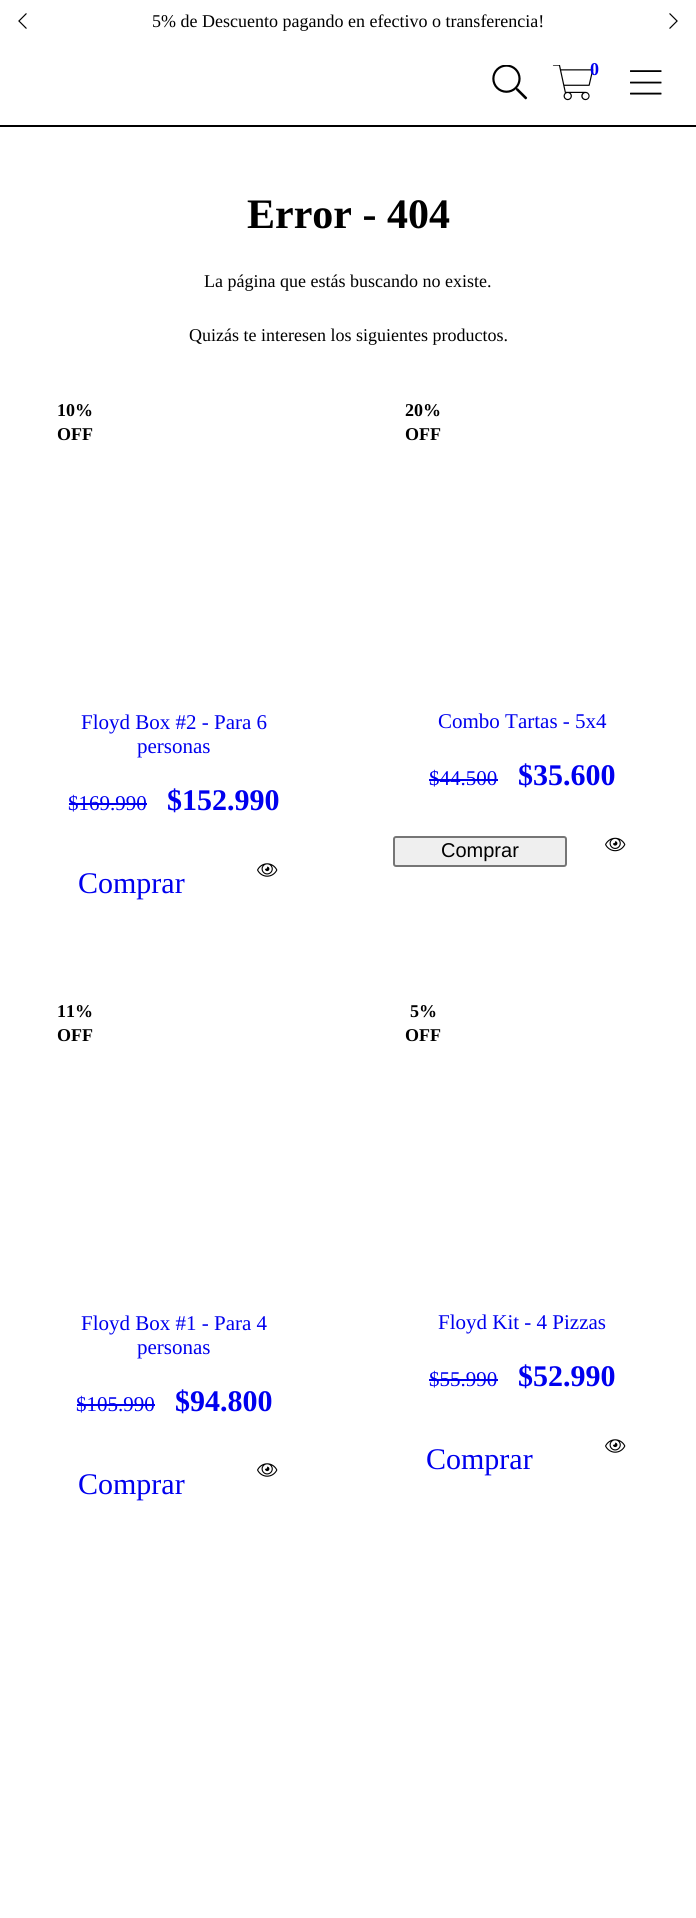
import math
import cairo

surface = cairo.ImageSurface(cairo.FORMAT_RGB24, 696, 1918)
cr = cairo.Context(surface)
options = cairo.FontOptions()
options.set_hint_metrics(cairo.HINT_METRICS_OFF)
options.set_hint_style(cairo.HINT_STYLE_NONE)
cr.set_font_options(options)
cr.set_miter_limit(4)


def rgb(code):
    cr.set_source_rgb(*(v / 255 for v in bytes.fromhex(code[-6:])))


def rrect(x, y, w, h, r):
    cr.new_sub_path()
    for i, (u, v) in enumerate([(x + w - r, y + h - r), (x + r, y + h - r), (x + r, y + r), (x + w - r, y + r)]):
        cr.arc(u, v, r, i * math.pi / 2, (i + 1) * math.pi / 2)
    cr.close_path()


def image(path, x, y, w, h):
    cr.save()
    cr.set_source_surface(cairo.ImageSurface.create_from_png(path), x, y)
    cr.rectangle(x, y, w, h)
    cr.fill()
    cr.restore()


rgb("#ffffff")
cr.paint()
image("img/1.png", 18, 13, 9, 16)
image("img/2.png", 669, 13, 9, 16)
image("img/3.png", 492, 65, 36, 35)
image("img/4.png", 552, 65, 42, 36)
image("img/5.png", 630, 70, 32, 25)
rgb("#000000")
cr.rectangle(0, 125, 696, 2)
cr.fill()
rgb("#0000ee")
cr.rectangle(69, 803, 78, 2)
cr.fill()
image("img/6.png", 257, 863, 21, 14)
cr.rectangle(429, 779, 69, 2)
cr.fill()
rgb("#efefef")
rrect(394, 837, 172, 29, 2)
cr.fill_preserve()
rgb("#767676")
cr.stroke()
image("img/7.png", 605, 837, 21, 15)
rgb("#0000ee")
cr.rectangle(77, 1404, 78, 2)
cr.fill()
image("img/6.png", 257, 1463, 21, 14)
cr.rectangle(429, 1379, 69, 2)
cr.fill()
image("img/6.png", 605, 1439, 21, 14)
cr.select_font_face("Liberation Serif")
cr.set_font_size(18)
rgb("#000000")
cr.move_to(152, 27)
cr.show_text("5% de Descuento pagando en efectivo o transferencia!")
cr.select_font_face("Liberation Serif", cairo.FONT_SLANT_NORMAL, cairo.FONT_WEIGHT_BOLD)
rgb("#0000ee")
cr.move_to(590, 75)
cr.show_text("0")
cr.set_font_size(42)
rgb("#000000")
cr.move_to(247, 228)
cr.show_text("Error - 404")
cr.select_font_face("Liberation Serif")
cr.set_font_size(18)
cr.move_to(204, 287)
cr.show_text("La página que estás buscando no existe.")
cr.move_to(189, 341)
cr.show_text("Quizás te interesen los siguientes productos.")
cr.select_font_face("Liberation Serif", cairo.FONT_SLANT_NORMAL, cairo.FONT_WEIGHT_BOLD)
cr.move_to(57, 416)
cr.show_text("10%")
cr.move_to(57, 440)
cr.show_text("OFF")
cr.select_font_face("Liberation Serif")
cr.set_font_size(21)
rgb("#0000ee")
for x, y, s in [
    (81, 729, "Floyd Box #2 - Para 6"),
    (137, 753, "personas"),
    (68, 810, "$169.990"),
]:
    cr.move_to(x, y)
    cr.show_text(s)
cr.select_font_face("Liberation Serif", cairo.FONT_SLANT_NORMAL, cairo.FONT_WEIGHT_BOLD)
cr.set_font_size(30)
cr.move_to(167, 810)
cr.show_text("$152.990")
cr.select_font_face("Liberation Serif")
cr.move_to(78, 893)
cr.show_text("Comprar")
cr.select_font_face("Liberation Serif", cairo.FONT_SLANT_NORMAL, cairo.FONT_WEIGHT_BOLD)
cr.set_font_size(18)
rgb("#000000")
cr.move_to(405, 416)
cr.show_text("20%")
cr.move_to(405, 440)
cr.show_text("OFF")
cr.select_font_face("Liberation Serif")
cr.set_font_size(21)
rgb("#0000ee")
cr.move_to(438, 728)
cr.show_text("Combo Tartas - 5x4")
cr.move_to(429, 785)
cr.show_text("$44.500")
cr.select_font_face("Liberation Serif", cairo.FONT_SLANT_NORMAL, cairo.FONT_WEIGHT_BOLD)
cr.set_font_size(30)
cr.move_to(518, 785)
cr.show_text("$35.600")
cr.select_font_face("Liberation Sans")
cr.set_font_size(20)
rgb("#000000")
cr.move_to(441, 857)
cr.show_text("Comprar")
cr.select_font_face("Liberation Serif", cairo.FONT_SLANT_NORMAL, cairo.FONT_WEIGHT_BOLD)
cr.set_font_size(18)
cr.move_to(57, 1017)
cr.show_text("11%")
cr.move_to(57, 1041)
cr.show_text("OFF")
cr.select_font_face("Liberation Serif")
cr.set_font_size(21)
rgb("#0000ee")
for x, y, s in [
    (81, 1330, "Floyd Box #1 - Para 4"),
    (137, 1354, "personas"),
    (76, 1411, "$105.990"),
]:
    cr.move_to(x, y)
    cr.show_text(s)
cr.select_font_face("Liberation Serif", cairo.FONT_SLANT_NORMAL, cairo.FONT_WEIGHT_BOLD)
cr.set_font_size(30)
cr.move_to(175, 1411)
cr.show_text("$94.800")
cr.select_font_face("Liberation Serif")
cr.move_to(78, 1494)
cr.show_text("Comprar")
cr.select_font_face("Liberation Serif", cairo.FONT_SLANT_NORMAL, cairo.FONT_WEIGHT_BOLD)
cr.set_font_size(18)
rgb("#000000")
cr.move_to(410, 1017)
cr.show_text("5%")
cr.move_to(405, 1041)
cr.show_text("OFF")
cr.select_font_face("Liberation Serif")
cr.set_font_size(21)
rgb("#0000ee")
cr.move_to(438, 1329)
cr.show_text("Floyd Kit - 4 Pizzas")
cr.move_to(429, 1386)
cr.show_text("$55.990")
cr.select_font_face("Liberation Serif", cairo.FONT_SLANT_NORMAL, cairo.FONT_WEIGHT_BOLD)
cr.set_font_size(30)
cr.move_to(518, 1386)
cr.show_text("$52.990")
cr.select_font_face("Liberation Serif")
cr.move_to(426, 1469)
cr.show_text("Comprar")
surface.write_to_png("page.png")
